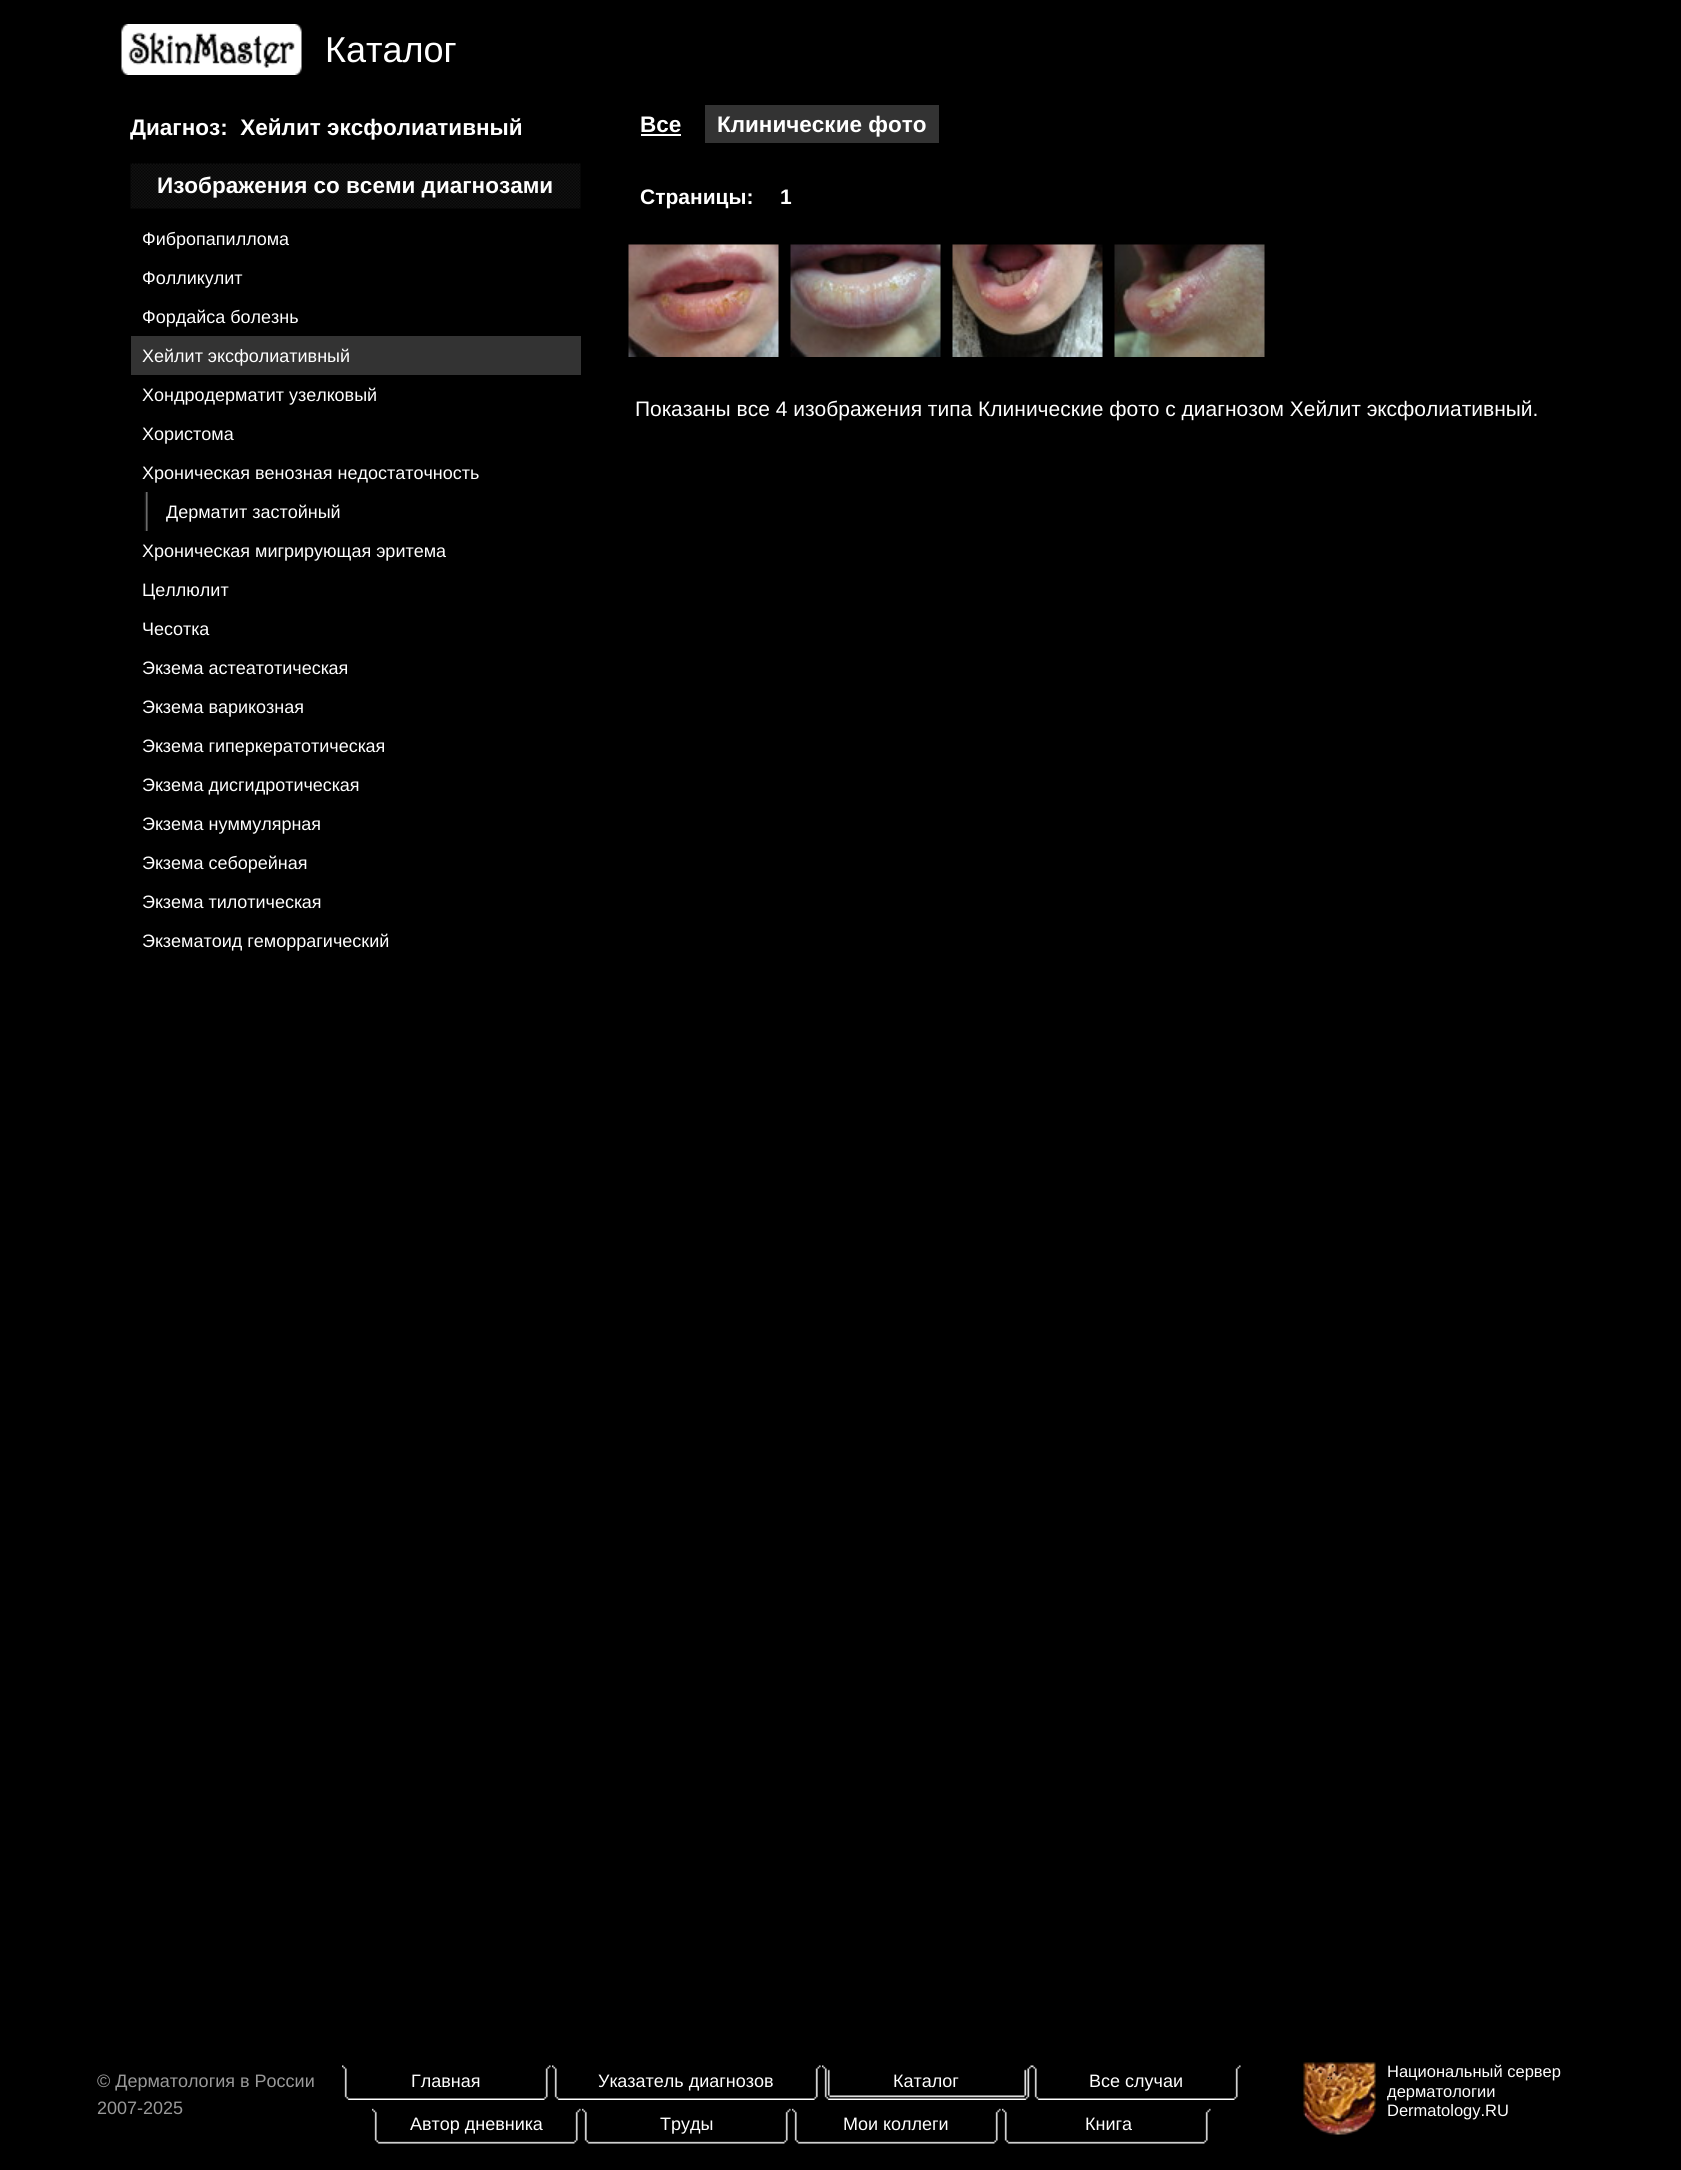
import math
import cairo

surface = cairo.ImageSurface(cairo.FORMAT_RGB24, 1681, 2170)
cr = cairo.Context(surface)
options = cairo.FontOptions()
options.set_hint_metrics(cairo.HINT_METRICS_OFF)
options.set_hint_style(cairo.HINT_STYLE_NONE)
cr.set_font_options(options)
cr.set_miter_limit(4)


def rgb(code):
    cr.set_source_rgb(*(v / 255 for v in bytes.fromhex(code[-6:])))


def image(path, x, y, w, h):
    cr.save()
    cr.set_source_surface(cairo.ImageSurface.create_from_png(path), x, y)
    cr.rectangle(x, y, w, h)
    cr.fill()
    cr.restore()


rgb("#000000")
cr.paint()
image("img/1.png", 121, 24, 181, 51)
image("img/2.png", 130, 163, 451, 46)
rgb("#333333")
cr.rectangle(131, 336, 450, 39)
cr.fill()
image("img/3.png", 144, 492, 4, 39)
rgb("#ffffff")
cr.rectangle(641, 134, 40, 2)
cr.fill()
rgb("#333333")
cr.rectangle(705, 105, 234, 38)
cr.fill()
image("img/4.png", 628, 244, 151, 113)
image("img/5.png", 790, 244, 151, 113)
image("img/6.png", 952, 244, 151, 113)
image("img/7.png", 1114, 244, 151, 113)
image("img/8.png", 342, 2065, 209, 35)
image("img/9.png", 552, 2065, 269, 35)
image("img/10.png", 822, 2065, 210, 35)
image("img/8.png", 1032, 2065, 209, 35)
image("img/11.png", 372, 2108, 209, 36)
image("img/12.png", 582, 2108, 209, 36)
image("img/11.png", 792, 2108, 209, 36)
image("img/11.png", 1002, 2108, 209, 36)
image("img/13.png", 1303, 2062, 73, 73)
cr.select_font_face("Liberation Sans")
cr.set_font_size(36)
rgb("#ffffff")
cr.move_to(325, 62)
cr.show_text("Каталог")
cr.select_font_face("Liberation Sans", cairo.FONT_SLANT_NORMAL, cairo.FONT_WEIGHT_BOLD)
cr.set_font_size(22.5)
cr.move_to(130, 135)
cr.show_text("Диагноз:  Хейлит эксфолиативный")
cr.move_to(157, 193)
cr.show_text("Изображения со всеми диагнозами")
cr.select_font_face("Liberation Sans")
cr.set_font_size(18)
for x, y, s in [
    (142, 245, "Фибропапиллома"),
    (142, 284, "Фолликулит"),
    (142, 323, "Фордайса болезнь"),
    (142, 362, "Хейлит эксфолиативный"),
    (142, 401, "Хондродерматит узелковый"),
    (142, 440, "Хористома"),
    (142, 479, "Хроническая венозная недостаточность"),
    (166, 518, "Дерматит застойный"),
    (142, 557, "Хроническая мигрирующая эритема"),
    (142, 596, "Целлюлит"),
    (142, 635, "Чесотка"),
    (142, 674, "Экзема астеатотическая"),
    (142, 713, "Экзема варикозная"),
    (142, 752, "Экзема гиперкератотическая"),
    (142, 791, "Экзема дисгидротическая"),
    (142, 830, "Экзема нуммулярная"),
    (142, 869, "Экзема себорейная"),
    (142, 908, "Экзема тилотическая"),
    (142, 947, "Экзематоид геморрагический"),
]:
    cr.move_to(x, y)
    cr.show_text(s)
cr.select_font_face("Liberation Sans", cairo.FONT_SLANT_NORMAL, cairo.FONT_WEIGHT_BOLD)
cr.set_font_size(22.5)
cr.move_to(640, 132)
cr.show_text("Все")
cr.move_to(717, 132)
cr.show_text("Клинические фото")
cr.set_font_size(21)
cr.move_to(640, 204)
cr.show_text("Страницы:")
cr.move_to(780, 204)
cr.show_text("1")
cr.select_font_face("Liberation Sans")
cr.move_to(635, 416)
cr.show_text("Показаны все 4 изображения типа Клинические фото с диагнозом Хейлит эксфолиативный.")
cr.set_font_size(18)
rgb("#999999")
cr.move_to(97, 2087)
cr.show_text("© Дерматология в России")
cr.move_to(97, 2114)
cr.show_text("2007-2025")
rgb("#ffffff")
for x, y, s in [
    (411, 2087, "Главная"),
    (598, 2087, "Указатель диагнозов"),
    (893, 2087, "Каталог"),
    (1089, 2087, "Все случаи"),
    (410, 2130, "Автор дневника"),
    (660, 2130, "Труды"),
    (843, 2130, "Мои коллеги"),
    (1085, 2130, "Книга"),
]:
    cr.move_to(x, y)
    cr.show_text(s)
cr.set_font_size(16.5)
for x, y, s in [
    (1387, 2077, "Национальный сервер"),
    (1387, 2097, "дерматологии"),
    (1387, 2116, "Dermatology.RU"),
]:
    cr.move_to(x, y)
    cr.show_text(s)
surface.write_to_png("page.png")
